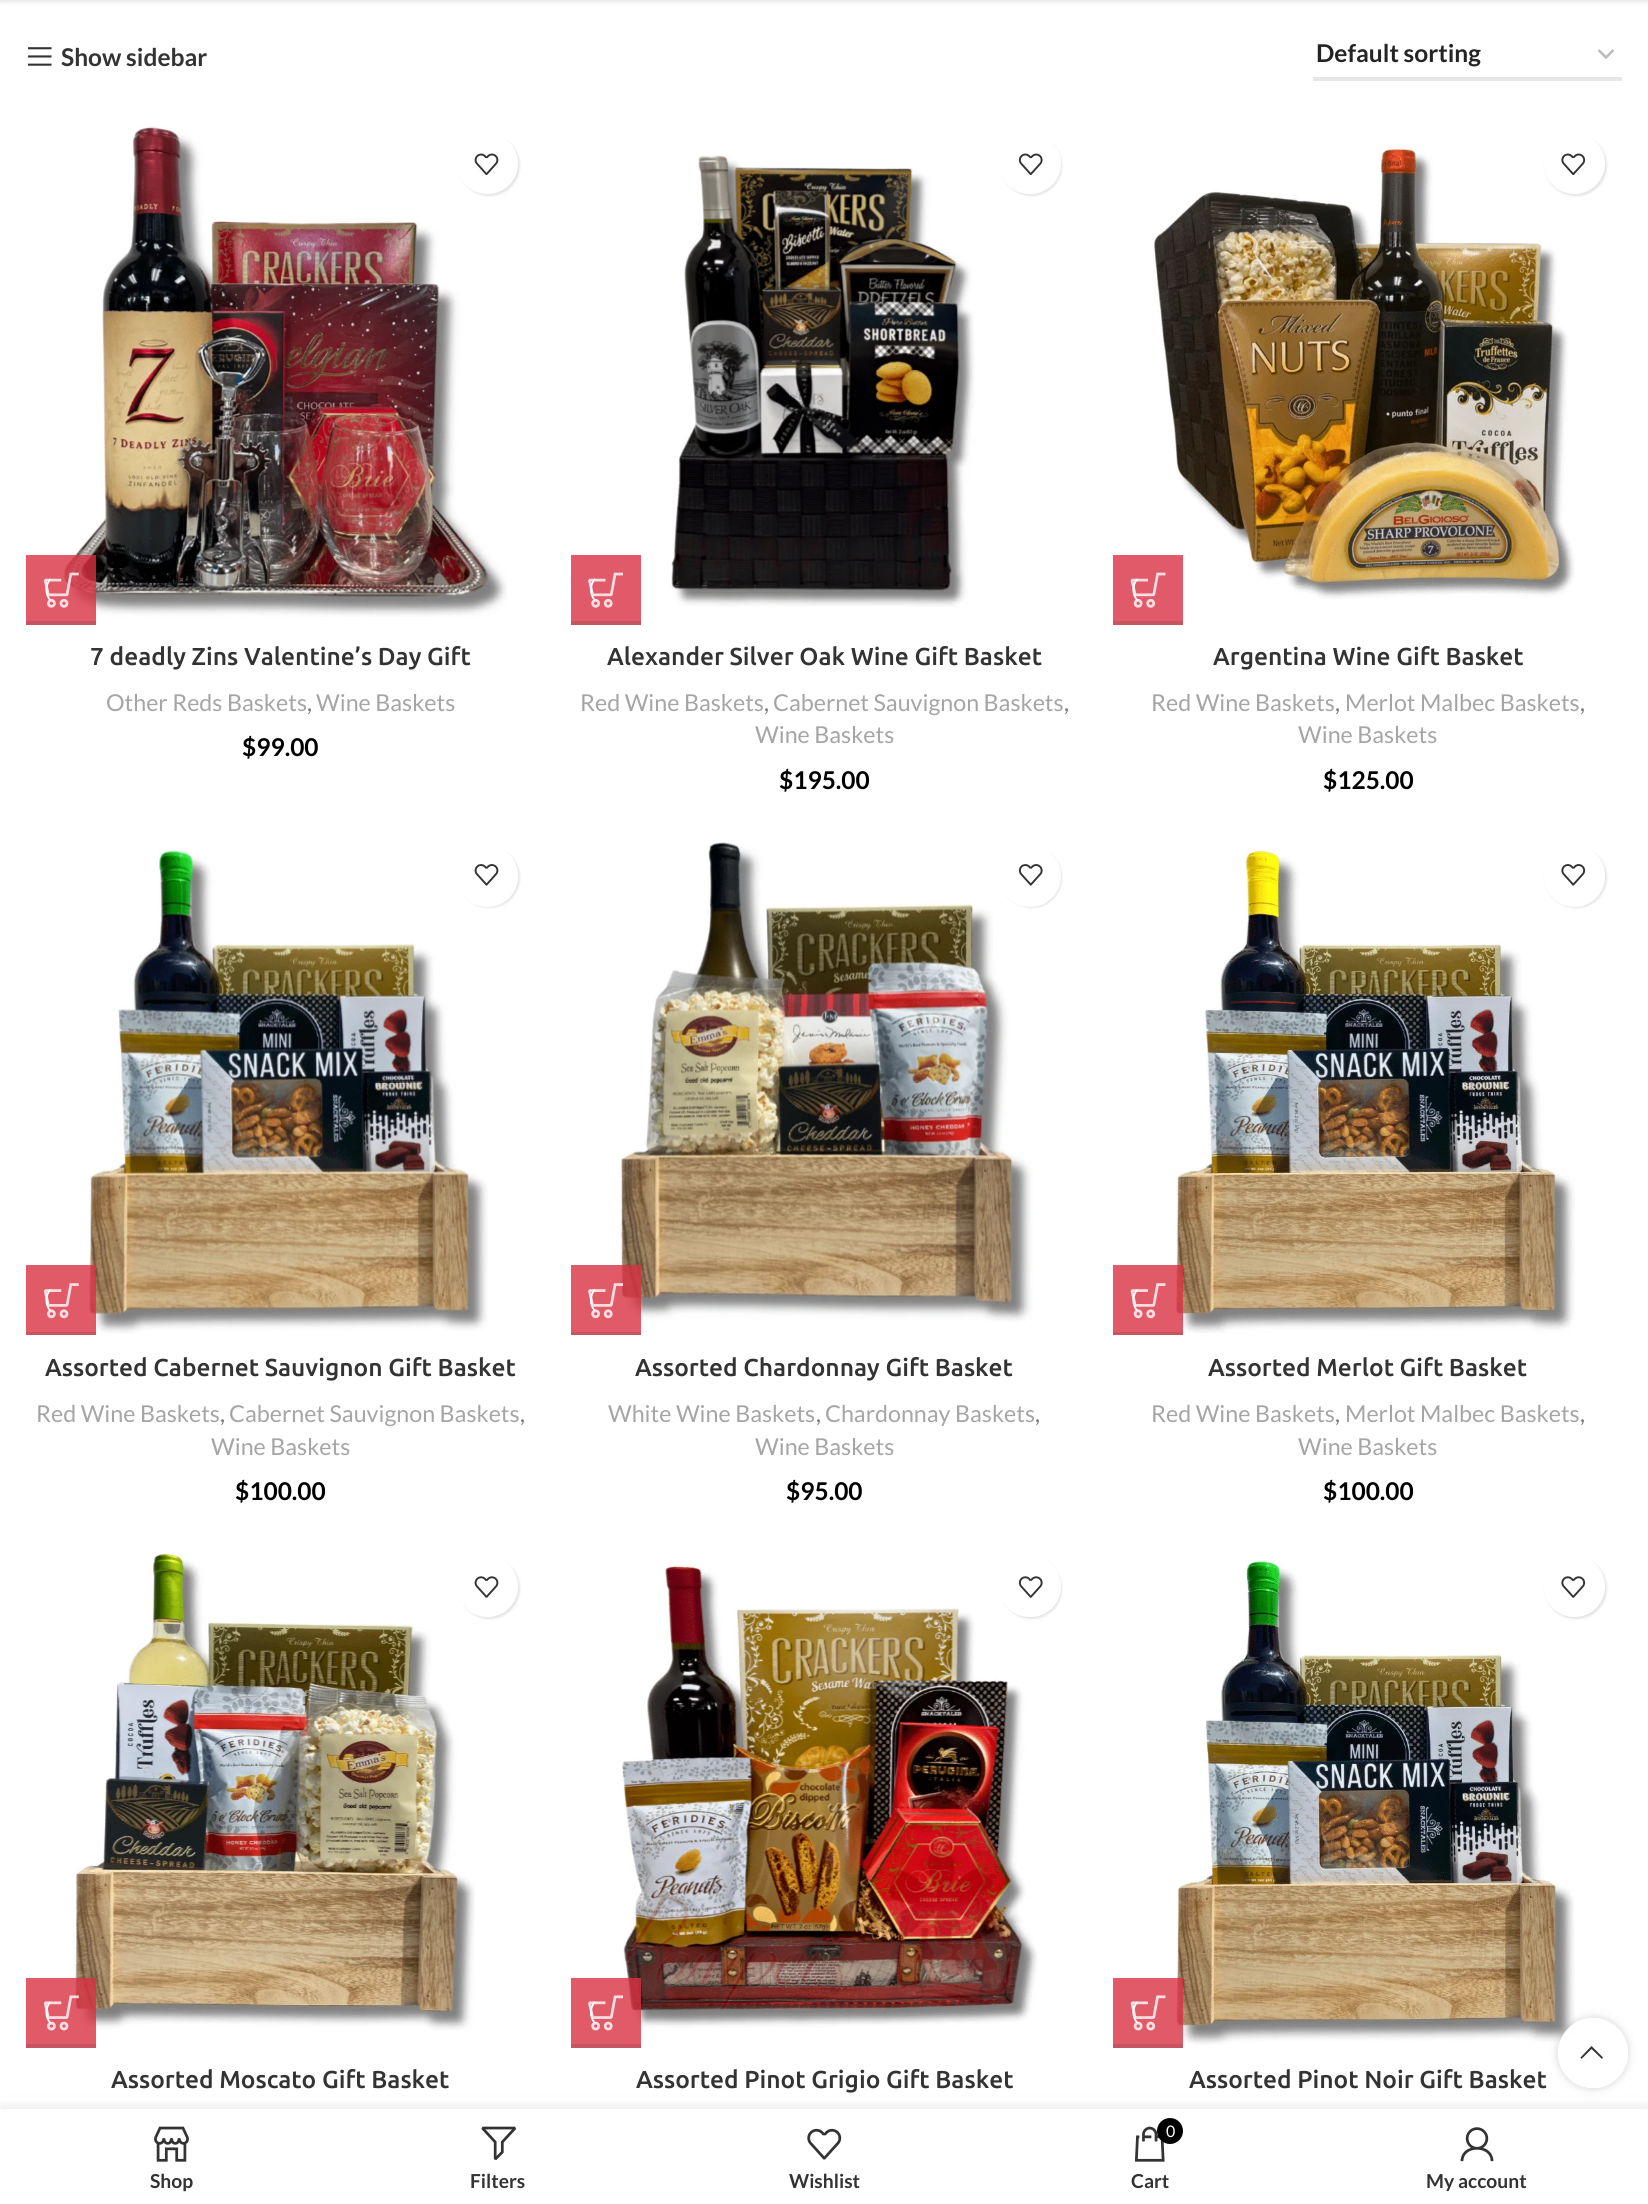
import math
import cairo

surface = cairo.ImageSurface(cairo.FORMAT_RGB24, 1648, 2204)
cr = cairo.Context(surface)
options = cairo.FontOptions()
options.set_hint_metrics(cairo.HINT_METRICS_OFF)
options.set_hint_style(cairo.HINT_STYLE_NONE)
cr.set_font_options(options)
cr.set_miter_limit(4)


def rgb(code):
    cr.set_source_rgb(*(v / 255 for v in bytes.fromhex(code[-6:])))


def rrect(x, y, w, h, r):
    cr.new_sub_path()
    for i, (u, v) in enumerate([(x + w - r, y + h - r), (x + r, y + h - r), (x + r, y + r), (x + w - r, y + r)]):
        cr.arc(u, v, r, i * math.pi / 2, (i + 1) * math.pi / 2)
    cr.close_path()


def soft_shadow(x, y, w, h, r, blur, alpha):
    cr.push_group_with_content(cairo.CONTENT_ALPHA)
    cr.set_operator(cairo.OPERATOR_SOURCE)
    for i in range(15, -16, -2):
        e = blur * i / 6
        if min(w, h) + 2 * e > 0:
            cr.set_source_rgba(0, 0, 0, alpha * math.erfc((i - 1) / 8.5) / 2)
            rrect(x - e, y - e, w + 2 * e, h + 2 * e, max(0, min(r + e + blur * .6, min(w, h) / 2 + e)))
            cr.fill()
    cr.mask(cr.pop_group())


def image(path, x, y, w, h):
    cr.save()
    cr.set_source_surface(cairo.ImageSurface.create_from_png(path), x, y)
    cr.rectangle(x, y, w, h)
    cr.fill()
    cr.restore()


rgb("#ffffff")
cr.paint()
rgb("#000000")
soft_shadow(0, -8, 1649, 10, 0, 2.5, 0.1)
image("img/1.png", 27, 47, 25, 19)
cr.new_path()
cr.move_to(1598.5, 50)
cr.line_to(1606, 57.5)
cr.line_to(1613.5, 50)
rgb("#bbbbbb")
cr.set_line_width(2.5)
cr.stroke()
rgb("#e6e6e6")
cr.rectangle(1313, 77, 309, 4)
cr.fill()
image("img/2.png", 63, 126, 444, 491)
rgb("#000000")
soft_shadow(459, 135, 61, 61, 30.5, 1, 0.1)
rgb("#ffffff")
cr.arc(487.5, 163.5, 30.5, 0, 2 * math.pi)
cr.fill()
image("img/3.png", 474, 153, 25, 22)
cr.set_source_rgba(0.851, 0.192, 0.263, 0.8)
cr.rectangle(26, 555, 70, 66)
cr.fill()
rgb("#c75461")
cr.rectangle(26, 621, 70, 4)
cr.fill()
image("img/4.png", 43, 572, 36, 36)
cr.new_path()
cr.move_to(50.5, 600.5)
cr.curve_to(45, 594.5, 45, 585, 50.5, 579)
rgb("#ffffff")
cr.set_line_width(1.8)
cr.stroke()
rgb("#e15a69")
cr.rectangle(571, 555, 70, 66)
cr.fill()
rgb("#c75461")
cr.rectangle(571, 621, 70, 4)
cr.fill()
image("img/5.png", 588, 572, 35, 36)
cr.new_path()
cr.move_to(595, 600.5)
cr.curve_to(589.5, 594.5, 589.5, 585, 595, 579)
rgb("#ffffff")
cr.stroke()
image("img/6.png", 671, 155, 304, 452)
rgb("#000000")
soft_shadow(1001, 135, 61, 61, 30.5, 1, 0.1)
rgb("#ffffff")
rrect(999, 133, 62, 61, 30.5)
cr.fill()
image("img/7.png", 1018, 153, 25, 22)
image("img/9.png", 1153, 147, 422, 452)
rgb("#e15a69")
cr.rectangle(1113, 555, 70, 66)
cr.fill()
rgb("#c75461")
cr.rectangle(1113, 621, 70, 4)
cr.fill()
image("img/8.png", 1130, 572, 36, 36)
cr.new_path()
cr.move_to(1137.5, 600.5)
cr.curve_to(1132, 594.5, 1132, 585, 1137.5, 579)
rgb("#ffffff")
cr.stroke()
rgb("#000000")
soft_shadow(1545, 135, 62, 61, 30.5, 1, 0.1)
rgb("#ffffff")
cr.arc(1574.5, 163.5, 30.5, 0, 2 * math.pi)
cr.fill()
image("img/10.png", 1561, 153, 25, 22)
image("img/12.png", 89, 849, 399, 485)
cr.set_source_rgba(0.851, 0.192, 0.263, 0.8)
cr.rectangle(26, 1265, 70, 67)
cr.fill()
rgb("#c75461")
cr.rectangle(26, 1332, 70, 3)
cr.fill()
image("img/11.png", 43, 1283, 36, 36)
cr.new_path()
cr.move_to(50.5, 1311)
cr.curve_to(45, 1305, 45, 1295.5, 50.5, 1289.5)
rgb("#ffffff")
cr.stroke()
rgb("#000000")
soft_shadow(459, 847, 61, 61, 30.5, 1, 0.1)
rgb("#ffffff")
rrect(457, 845, 61, 62, 30.5)
cr.fill()
image("img/13.png", 474, 864, 25, 22)
image("img/14.png", 620, 842, 413, 480)
rgb("#000000")
soft_shadow(1001, 847, 61, 61, 30.5, 1, 0.1)
rgb("#ffffff")
cr.arc(1030, 876, 31, 0, 2 * math.pi)
cr.fill()
image("img/15.png", 1018, 864, 25, 22)
cr.set_source_rgba(0.851, 0.192, 0.263, 0.8)
cr.rectangle(571, 1265, 70, 67)
cr.fill()
rgb("#c75461")
cr.rectangle(571, 1332, 70, 3)
cr.fill()
image("img/16.png", 588, 1283, 35, 36)
cr.new_path()
cr.move_to(595, 1311)
cr.curve_to(589.5, 1305, 589.5, 1295.5, 595, 1289.5)
rgb("#ffffff")
cr.stroke()
image("img/18.png", 1176, 849, 399, 484)
cr.set_source_rgba(0.851, 0.192, 0.263, 0.8)
cr.rectangle(1113, 1265, 70, 67)
cr.fill()
rgb("#c75461")
cr.rectangle(1113, 1332, 70, 3)
cr.fill()
image("img/17.png", 1130, 1283, 36, 36)
cr.new_path()
cr.move_to(1137.5, 1311)
cr.curve_to(1132, 1305, 1132, 1295.5, 1137.5, 1289.5)
rgb("#ffffff")
cr.stroke()
rgb("#000000")
soft_shadow(1545, 847, 62, 61, 30.5, 1, 0.1)
rgb("#ffffff")
rrect(1544, 845, 61, 62, 30.5)
cr.fill()
image("img/19.png", 1561, 864, 25, 22)
image("img/20.png", 74, 1553, 401, 478)
rgb("#000000")
soft_shadow(459, 1558, 61, 61, 30.5, 1, 0.1)
rgb("#ffffff")
cr.arc(487.5, 1586.5, 30.5, 0, 2 * math.pi)
cr.fill()
image("img/21.png", 474, 1576, 25, 22)
cr.set_source_rgba(0.851, 0.192, 0.263, 0.8)
cr.rectangle(26, 1978, 70, 66)
cr.fill()
rgb("#c75461")
cr.rectangle(26, 2044, 70, 4)
cr.fill()
image("img/22.png", 43, 1995, 36, 36)
cr.new_path()
cr.move_to(50.5, 2023)
cr.curve_to(45, 2017.5, 45, 2007.5, 50.5, 2002)
rgb("#ffffff")
cr.stroke()
image("img/25.png", 622, 1565, 416, 463)
rgb("#000000")
soft_shadow(1001, 1558, 61, 61, 30.5, 1, 0.1)
rgb("#ffffff")
rrect(999, 1556, 62, 61, 30.5)
cr.fill()
image("img/23.png", 1018, 1576, 25, 22)
cr.set_source_rgba(0.851, 0.192, 0.263, 0.8)
cr.rectangle(571, 1978, 70, 66)
cr.fill()
rgb("#c75461")
cr.rectangle(571, 2044, 70, 4)
cr.fill()
image("img/24.png", 588, 1995, 35, 36)
cr.new_path()
cr.move_to(595, 2023)
cr.curve_to(589.5, 2017.5, 589.5, 2007.5, 595, 2002)
rgb("#ffffff")
cr.stroke()
image("img/27.png", 1176, 1559, 399, 486)
cr.set_source_rgba(0.851, 0.192, 0.263, 0.8)
cr.rectangle(1113, 1978, 70, 66)
cr.fill()
rgb("#c75461")
cr.rectangle(1113, 2044, 70, 4)
cr.fill()
image("img/26.png", 1130, 1995, 36, 36)
cr.new_path()
cr.move_to(1137.5, 2023)
cr.curve_to(1132, 2017.5, 1132, 2007.5, 1137.5, 2002)
rgb("#ffffff")
cr.stroke()
rgb("#000000")
soft_shadow(1545, 1558, 62, 61, 30.5, 1, 0.1)
rgb("#ffffff")
cr.arc(1574.5, 1586.5, 30.5, 0, 2 * math.pi)
cr.fill()
image("img/28.png", 1561, 1576, 25, 22)
cr.save()
cr.set_fill_rule(cairo.FILL_RULE_EVEN_ODD)
cr.new_path()
cr.move_to(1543, 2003)
cr.line_to(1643, 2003)
cr.line_to(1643, 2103)
cr.line_to(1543, 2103)
cr.close_path()
cr.move_to(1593, 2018)
cr.curve_to(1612.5, 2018, 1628, 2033.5, 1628, 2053)
cr.curve_to(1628, 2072.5, 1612.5, 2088, 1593, 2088)
cr.curve_to(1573.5, 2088, 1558, 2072.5, 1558, 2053)
cr.curve_to(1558, 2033.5, 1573.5, 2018, 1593, 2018)
cr.close_path()
cr.clip()
rgb("#000000")
soft_shadow(1558, 2018, 70, 70, 35, 4.5, 0.17)
cr.restore()
cr.set_source_rgba(1, 1, 1, 0.9)
cr.arc(1593, 2053, 35, 0, 2 * math.pi)
cr.fill()
rgb("#333333")
cr.new_path()
cr.move_to(1602, 2059)
cr.line_to(1603, 2057.5)
cr.line_to(1591.5, 2046)
cr.line_to(1580.5, 2057.5)
cr.line_to(1581.5, 2059)
cr.line_to(1591.5, 2049)
cr.close_path()
cr.fill()
rgb("#000000")
soft_shadow(0, 2109, 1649, 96, 0, 8, 0.12)
rgb("#ffffff")
cr.rectangle(0, 2109, 1648, 95)
cr.fill()
image("img/29.png", 154, 2126, 35, 36)
image("img/30.png", 481, 2126, 36, 35)
image("img/31.png", 807, 2128, 35, 32)
image("img/32.png", 1134, 2126, 31, 36)
rgb("#000000")
cr.arc(1170, 2131, 13, 0, 2 * math.pi)
cr.fill()
image("img/33.png", 1460, 2127, 34, 35)
cr.select_font_face("Lato", cairo.FONT_SLANT_NORMAL, cairo.FONT_WEIGHT_BOLD)
cr.set_font_size(24.5)
rgb("#333333")
cr.move_to(61, 66)
cr.show_text("Show sidebar")
rgb("#242424")
cr.move_to(1316, 62)
cr.show_text("Default sorting")
cr.select_font_face("Ubuntu Medium")
rgb("#333333")
cr.move_to(90, 665)
cr.show_text("7 deadly Zins Valentine’s Day Gift")
cr.select_font_face("Lato")
cr.set_font_size(23.25)
rgb("#a5a5a5")
cr.move_to(106, 711)
cr.show_text("Other Reds Baskets")
rgb("#777777")
cr.move_to(307, 711)
cr.show_text(",")
rgb("#a5a5a5")
cr.move_to(316, 711)
cr.show_text("Wine Baskets")
cr.select_font_face("Lato", cairo.FONT_SLANT_NORMAL, cairo.FONT_WEIGHT_BOLD)
cr.set_font_size(24.5)
rgb("#000000")
cr.move_to(242, 756)
cr.show_text("$99.00")
cr.select_font_face("Ubuntu Medium")
rgb("#333333")
cr.move_to(607, 665)
cr.show_text("Alexander Silver Oak Wine Gift Basket")
cr.select_font_face("Lato")
cr.set_font_size(23.25)
rgb("#a5a5a5")
cr.move_to(580, 711)
cr.show_text("Red Wine Baskets")
rgb("#777777")
cr.move_to(764, 711)
cr.show_text(",")
rgb("#a5a5a5")
cr.move_to(773, 711)
cr.show_text("Cabernet Sauvignon Baskets")
rgb("#777777")
cr.move_to(1064, 711)
cr.show_text(",")
rgb("#a5a5a5")
cr.move_to(755, 743)
cr.show_text("Wine Baskets")
cr.select_font_face("Lato", cairo.FONT_SLANT_NORMAL, cairo.FONT_WEIGHT_BOLD)
cr.set_font_size(24.5)
rgb("#000000")
cr.move_to(779, 789)
cr.show_text("$195.00")
cr.select_font_face("Ubuntu Medium")
rgb("#333333")
cr.move_to(1213, 665)
cr.show_text("Argentina Wine Gift Basket")
cr.select_font_face("Lato")
cr.set_font_size(23.25)
rgb("#a5a5a5")
cr.move_to(1151, 711)
cr.show_text("Red Wine Baskets")
rgb("#777777")
cr.move_to(1335, 711)
cr.show_text(",")
rgb("#a5a5a5")
cr.move_to(1345, 711)
cr.show_text("Merlot Malbec Baskets")
rgb("#777777")
cr.move_to(1580, 711)
cr.show_text(",")
rgb("#a5a5a5")
cr.move_to(1298, 743)
cr.show_text("Wine Baskets")
cr.select_font_face("Lato", cairo.FONT_SLANT_NORMAL, cairo.FONT_WEIGHT_BOLD)
cr.set_font_size(24.5)
rgb("#000000")
cr.move_to(1323, 789)
cr.show_text("$125.00")
cr.select_font_face("Ubuntu Medium")
rgb("#333333")
cr.move_to(45, 1376)
cr.show_text("Assorted Cabernet Sauvignon Gift Basket")
cr.select_font_face("Lato")
cr.set_font_size(23.25)
rgb("#a5a5a5")
cr.move_to(36, 1422)
cr.show_text("Red Wine Baskets")
rgb("#777777")
cr.move_to(220, 1422)
cr.show_text(",")
rgb("#a5a5a5")
cr.move_to(229, 1422)
cr.show_text("Cabernet Sauvignon Baskets")
rgb("#777777")
cr.move_to(520, 1422)
cr.show_text(",")
rgb("#a5a5a5")
cr.move_to(211, 1455)
cr.show_text("Wine Baskets")
cr.select_font_face("Lato", cairo.FONT_SLANT_NORMAL, cairo.FONT_WEIGHT_BOLD)
cr.set_font_size(24.5)
rgb("#000000")
cr.move_to(235, 1500)
cr.show_text("$100.00")
cr.select_font_face("Ubuntu Medium")
rgb("#333333")
cr.move_to(635, 1376)
cr.show_text("Assorted Chardonnay Gift Basket")
cr.select_font_face("Lato")
cr.set_font_size(23.25)
rgb("#a5a5a5")
cr.move_to(608, 1422)
cr.show_text("White Wine Baskets")
rgb("#777777")
cr.move_to(816, 1422)
cr.show_text(",")
rgb("#a5a5a5")
cr.move_to(825, 1422)
cr.show_text("Chardonnay Baskets")
rgb("#777777")
cr.move_to(1035, 1422)
cr.show_text(",")
rgb("#a5a5a5")
cr.move_to(755, 1455)
cr.show_text("Wine Baskets")
cr.select_font_face("Lato", cairo.FONT_SLANT_NORMAL, cairo.FONT_WEIGHT_BOLD)
cr.set_font_size(24.5)
rgb("#000000")
cr.move_to(786, 1500)
cr.show_text("$95.00")
cr.select_font_face("Ubuntu Medium")
rgb("#333333")
cr.move_to(1208, 1376)
cr.show_text("Assorted Merlot Gift Basket")
cr.select_font_face("Lato")
cr.set_font_size(23.25)
rgb("#a5a5a5")
cr.move_to(1151, 1422)
cr.show_text("Red Wine Baskets")
rgb("#777777")
cr.move_to(1335, 1422)
cr.show_text(",")
rgb("#a5a5a5")
cr.move_to(1345, 1422)
cr.show_text("Merlot Malbec Baskets")
rgb("#777777")
cr.move_to(1580, 1422)
cr.show_text(",")
rgb("#a5a5a5")
cr.move_to(1298, 1455)
cr.show_text("Wine Baskets")
cr.select_font_face("Lato", cairo.FONT_SLANT_NORMAL, cairo.FONT_WEIGHT_BOLD)
cr.set_font_size(24.5)
rgb("#000000")
cr.move_to(1323, 1500)
cr.show_text("$100.00")
cr.select_font_face("Ubuntu Medium")
rgb("#333333")
for x, y, s in [
    (111, 2088, "Assorted Moscato Gift Basket"),
    (636, 2088, "Assorted Pinot Grigio Gift Basket"),
    (1189, 2088, "Assorted Pinot Noir Gift Basket"),
]:
    cr.move_to(x, y)
    cr.show_text(s)
cr.select_font_face("Lato", cairo.FONT_SLANT_NORMAL, cairo.FONT_WEIGHT_BOLD)
cr.set_font_size(19.25)
for x, y, s in [
    (150, 2188, "Shop"),
    (470, 2188, "Filters"),
    (789, 2188, "Wishlist"),
]:
    cr.move_to(x, y)
    cr.show_text(s)
cr.select_font_face("Lato")
cr.set_font_size(16)
rgb("#ffffff")
cr.move_to(1166, 2137)
cr.show_text("0")
cr.select_font_face("Lato", cairo.FONT_SLANT_NORMAL, cairo.FONT_WEIGHT_BOLD)
cr.set_font_size(19.25)
rgb("#333333")
cr.move_to(1131, 2188)
cr.show_text("Cart")
cr.save()
cr.rectangle(1332, 2168, 290, 23)
cr.clip()
cr.move_to(1426, 2188)
cr.show_text("My account")
cr.restore()
surface.write_to_png("page.png")
